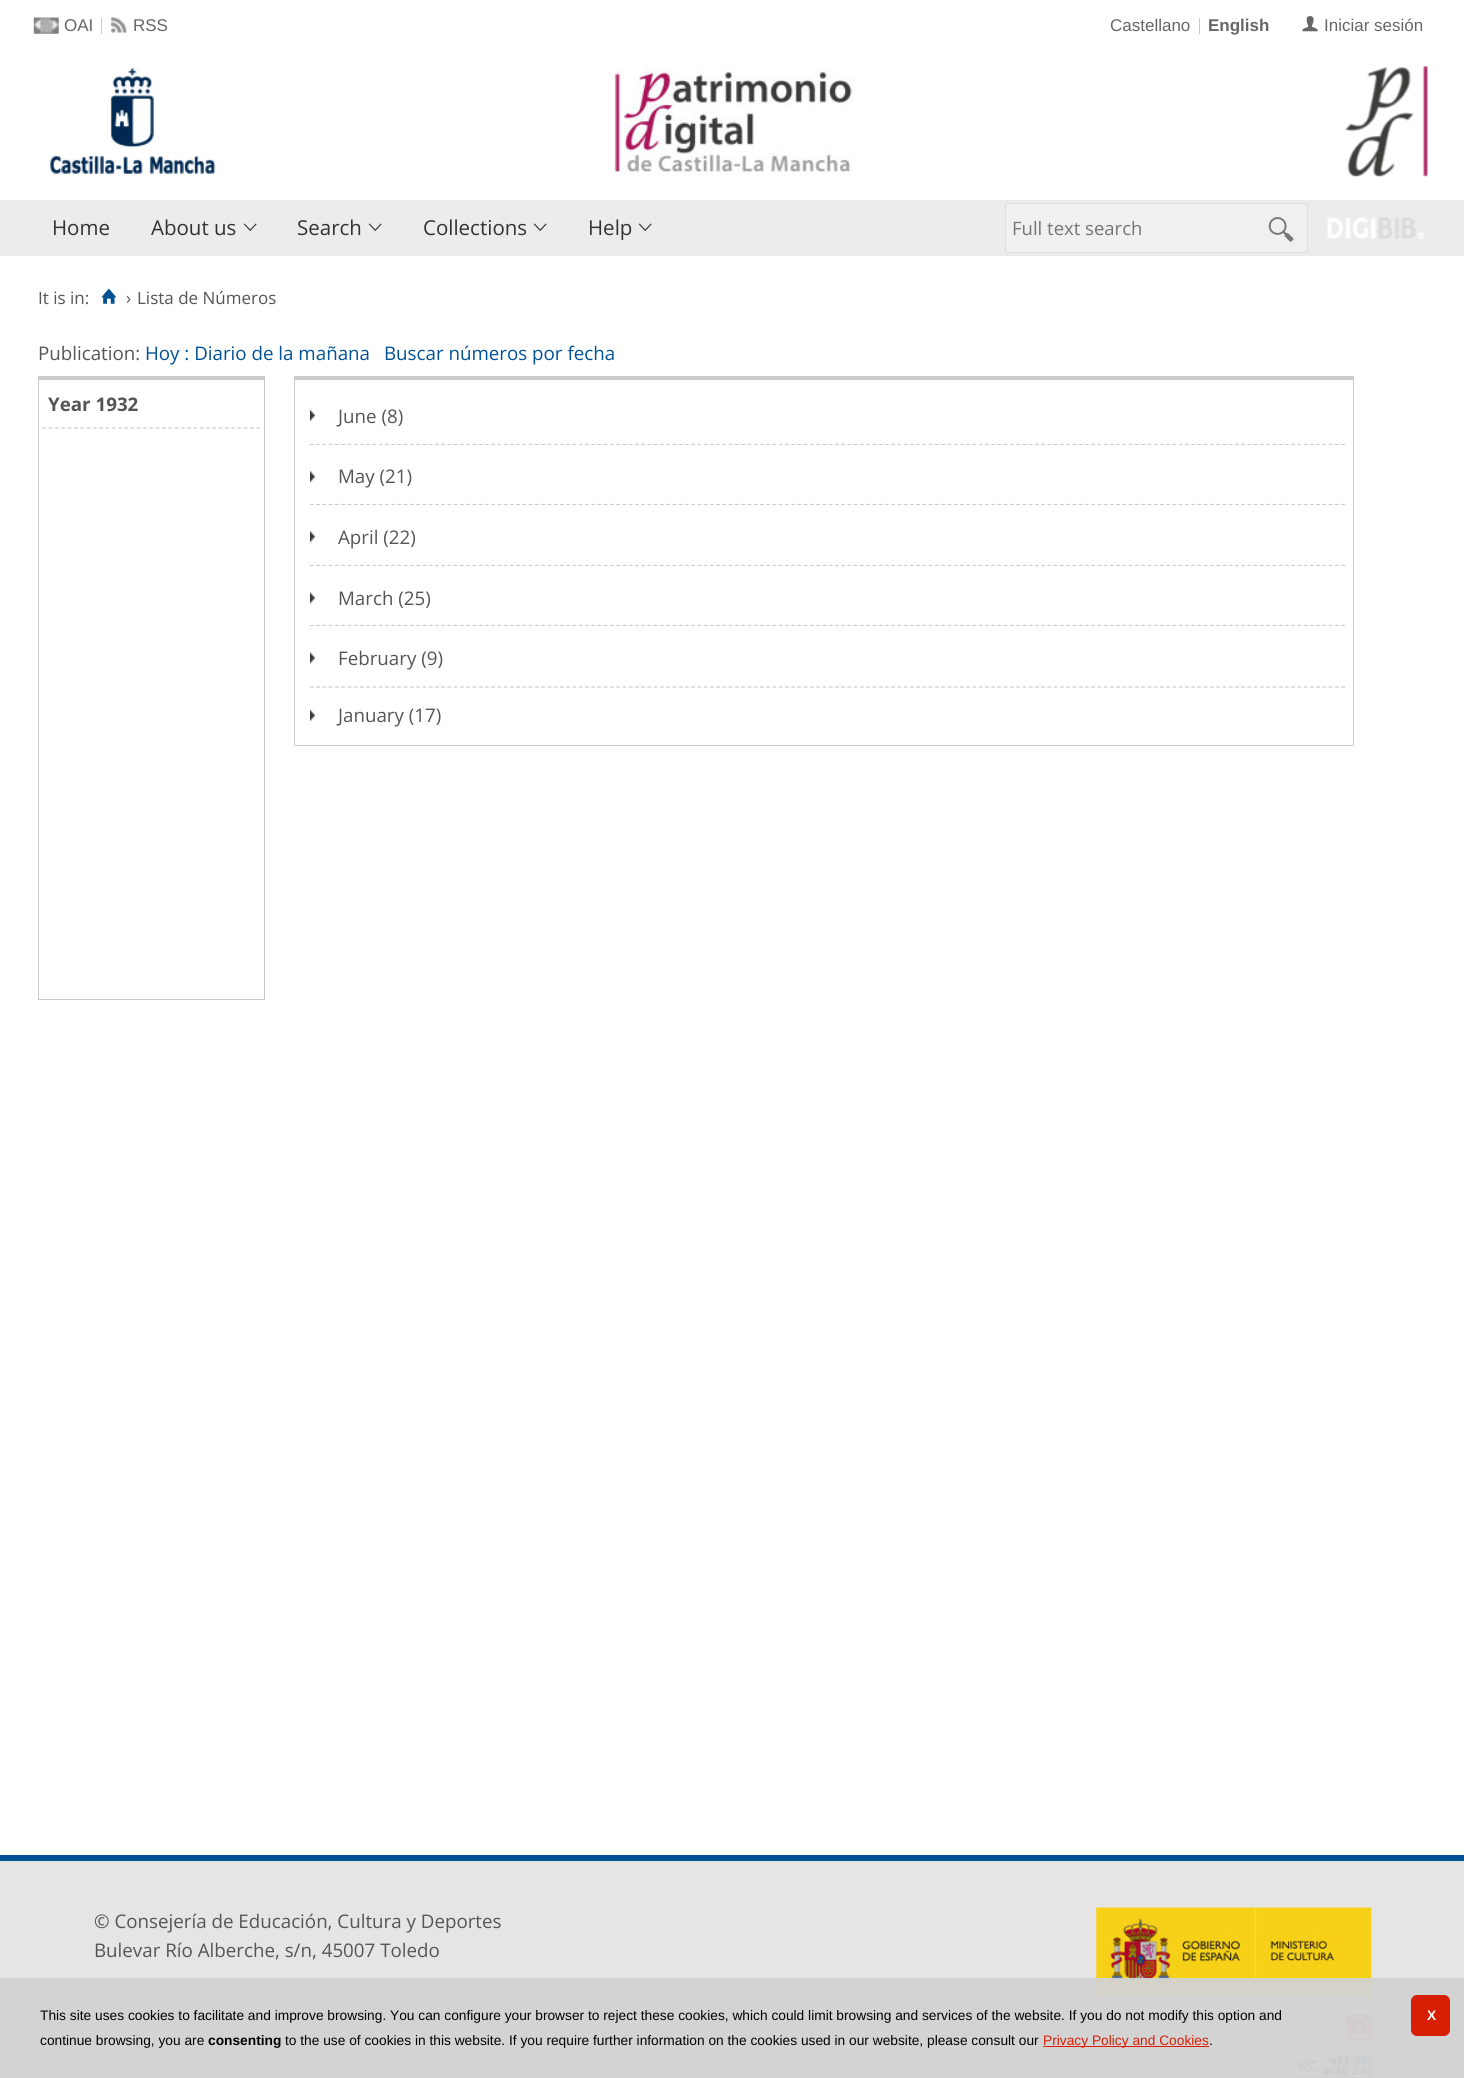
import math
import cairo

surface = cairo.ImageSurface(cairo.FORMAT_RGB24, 1464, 2078)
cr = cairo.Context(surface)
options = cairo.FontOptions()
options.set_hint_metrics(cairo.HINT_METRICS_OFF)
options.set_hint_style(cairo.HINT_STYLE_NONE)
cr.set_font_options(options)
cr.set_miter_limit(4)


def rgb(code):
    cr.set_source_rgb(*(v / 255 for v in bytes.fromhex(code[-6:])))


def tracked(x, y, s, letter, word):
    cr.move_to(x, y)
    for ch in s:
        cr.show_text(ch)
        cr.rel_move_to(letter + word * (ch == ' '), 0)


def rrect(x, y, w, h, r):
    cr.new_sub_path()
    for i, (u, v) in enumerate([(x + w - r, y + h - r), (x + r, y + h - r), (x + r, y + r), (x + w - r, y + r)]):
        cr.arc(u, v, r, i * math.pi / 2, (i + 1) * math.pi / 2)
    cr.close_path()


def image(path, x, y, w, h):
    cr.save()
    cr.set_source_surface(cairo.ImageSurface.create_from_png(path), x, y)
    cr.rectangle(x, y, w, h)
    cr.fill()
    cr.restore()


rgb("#ffffff")
cr.paint()
image("img/1.png", 33, 17, 26, 17)
rgb("#cccccc")
cr.rectangle(101, 18, 1, 16)
cr.fill()
image("img/2.png", 111, 17, 16, 16)
cr.rectangle(1199, 18, 1, 16)
cr.fill()
image("img/3.png", 1302, 16, 16, 16)
image("img/4.png", 614, 66, 239, 110)
image("img/5.png", 49, 67, 167, 107)
image("img/6.png", 1344, 66, 84, 111)
rgb("#ececec")
cr.rectangle(0, 200, 1464, 56)
cr.fill()
image("img/7.png", 243, 223, 14, 8)
image("img/7.png", 368, 223, 14, 8)
image("img/7.png", 533, 223, 14, 8)
image("img/7.png", 638, 223, 14, 8)
rgb("#f0f0f0")
rrect(1005.5, 203.5, 302, 49, 2)
cr.fill_preserve()
rgb("#dddddd")
cr.set_line_width(1)
cr.stroke()
image("img/8.png", 1268, 217, 26, 25)
image("img/9.png", 1327, 217, 97, 22)
image("img/10.png", 101, 288, 16, 16)
for x, y, w, h, color in [
    (38, 376, 227, 4, "#cccccc"),
    (264, 376, 1, 624, "#cccccc"),
    (38, 999, 227, 1, "#cccccc"),
    (38, 376, 1, 624, "#cccccc"),
]:
    rgb(color)
    cr.rectangle(x, y, w, h)
    cr.fill()
cr.new_path()
cr.move_to(42.5, 428)
cr.line_to(260, 428)
cr.set_line_width(1.2)
cr.set_dash([3.75, 2.54])
cr.stroke()
for x, y, w, h, color in [
    (294, 376, 1060, 4, "#cccccc"),
    (1353, 376, 1, 370, "#cccccc"),
    (294, 745, 1060, 1, "#cccccc"),
    (294, 376, 1, 370, "#cccccc"),
]:
    rgb(color)
    cr.rectangle(x, y, w, h)
    cr.fill()
cr.new_path()
cr.move_to(310, 444.5)
cr.line_to(1345, 444.5)
cr.set_dash([3.75, 2.5])
cr.stroke()
image("img/11.png", 310, 410, 5, 12)
rgb("#ffffff")
cr.rectangle(310, 445, 1035, 1)
cr.fill()
cr.new_path()
cr.move_to(310, 504.5)
cr.line_to(1345, 504.5)
rgb("#cccccc")
cr.stroke()
image("img/12.png", 310, 471, 5, 12)
rgb("#ffffff")
cr.rectangle(310, 505, 1035, 1)
cr.fill()
cr.new_path()
cr.move_to(310, 565.5)
cr.line_to(1345, 565.5)
rgb("#cccccc")
cr.stroke()
image("img/12.png", 310, 531, 5, 12)
rgb("#ffffff")
cr.rectangle(310, 566, 1035, 1)
cr.fill()
cr.new_path()
cr.move_to(310, 625.5)
cr.line_to(1345, 625.5)
rgb("#cccccc")
cr.stroke()
image("img/13.png", 310, 592, 5, 12)
rgb("#ffffff")
cr.rectangle(310, 626, 1035, 1)
cr.fill()
cr.new_path()
cr.move_to(310, 687)
cr.line_to(1345, 687)
rgb("#cccccc")
cr.stroke()
image("img/13.png", 310, 652, 5, 12)
image("img/11.png", 310, 710, 5, 12)
rgb("#e5e5e5")
cr.rectangle(0, 1861, 1464, 217)
cr.fill()
rgb("#005196")
cr.rectangle(0, 1855, 1464, 6)
cr.fill()
image("img/14.png", 1096, 1907, 276, 90)
image("img/15.png", 1346, 2015, 26, 25)
image("img/16.png", 1293, 2051, 79, 27)
cr.set_source_rgba(0.824, 0.824, 0.824, 0.95)
cr.rectangle(0, 1978, 1464, 100)
cr.fill()
cr.new_path()
cr.move_to(0, 2078)
cr.line_to(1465, 2078)
rgb("#cccccc")
cr.set_dash([1.25, 1.25])
cr.stroke()
rgb("#d81e05")
cr.rectangle(1043, 2046, 166, 1)
cr.fill()
rrect(1411, 1995, 39, 41, 6)
cr.fill()
cr.select_font_face("Liberation Sans")
cr.set_font_size(17)
rgb("#666666")
for x, y, s in [
    (64, 31, "OAI"),
    (133, 31, "RSS"),
    (1110, 31, "Castellano"),
]:
    cr.move_to(x, y)
    cr.show_text(s)
cr.select_font_face("Liberation Sans", cairo.FONT_SLANT_NORMAL, cairo.FONT_WEIGHT_BOLD)
cr.move_to(1208, 31)
cr.show_text("English")
cr.select_font_face("Liberation Sans")
cr.move_to(1324, 31)
cr.show_text("Iniciar sesión")
cr.select_font_face("Open Sans")
cr.set_font_size(20.5)
rgb("#333333")
for x, y, s in [
    (52, 235, "Home"),
    (151, 235, "About us"),
    (297, 235, "Search"),
    (423, 235, "Collections"),
    (588, 235, "Help"),
]:
    cr.move_to(x, y)
    cr.show_text(s)
cr.set_font_size(18.5)
rgb("#757575")
cr.move_to(1012, 235)
cr.show_text("Full text search")
cr.set_font_size(17)
rgb("#555555")
for x, y, s in [
    (38, 304, "It is in:"),
    (126, 304, "›"),
    (137, 304, "Lista de Números"),
]:
    cr.move_to(x, y)
    cr.show_text(s)
cr.set_font_size(18.75)
cr.move_to(38, 360)
cr.show_text("Publication:")
rgb("#005196")
cr.move_to(145, 360)
cr.show_text("Hoy : Diario de la mañana")
cr.move_to(384, 360)
cr.show_text("Buscar números por fecha")
cr.select_font_face("Open Sans", cairo.FONT_SLANT_NORMAL, cairo.FONT_WEIGHT_BOLD)
rgb("#555555")
cr.move_to(48, 411)
cr.show_text("Year 1932")
cr.select_font_face("Open Sans")
for x, y, s in [
    (338, 423, "June (8)"),
    (338, 483, "May (21)"),
    (338, 544, "April (22)"),
    (338, 605, "March (25)"),
    (338, 665, "February (9)"),
    (338, 722, "January (17)"),
    (94, 1928, "© Consejería de Educación, Cultura y Deportes"),
    (94, 1957, "Bulevar Río Alberche, s/n, 45007 Toledo"),
]:
    cr.move_to(x, y)
    cr.show_text(s)
cr.select_font_face("Liberation Sans")
cr.set_font_size(13.75)
rgb("#000000")
cr.move_to(40, 2020)
cr.show_text("This site uses cookies to facilitate and improve browsing. You can configure your browser to reject these cookies, which could limit browsing and services of the website. If you do not modify this option and")
cr.move_to(40, 2045)
cr.show_text("continue browsing, you are")
cr.select_font_face("Liberation Sans", cairo.FONT_SLANT_NORMAL, cairo.FONT_WEIGHT_BOLD)
cr.move_to(208, 2045)
cr.show_text("consenting")
cr.select_font_face("Liberation Sans")
cr.move_to(285, 2045)
cr.show_text("to the use of cookies in this website. If you require further information on the cookies used in our website, please consult our")
rgb("#d81e05")
cr.move_to(1043, 2045)
cr.show_text("Privacy Policy and Cookies")
rgb("#000000")
cr.move_to(1209, 2045)
cr.show_text(".")
cr.select_font_face("Liberation Sans", cairo.FONT_SLANT_NORMAL, cairo.FONT_WEIGHT_BOLD)
rgb("#ffffff")
tracked(1427, 2020, "X", -1, 0)
surface.write_to_png("page.png")
